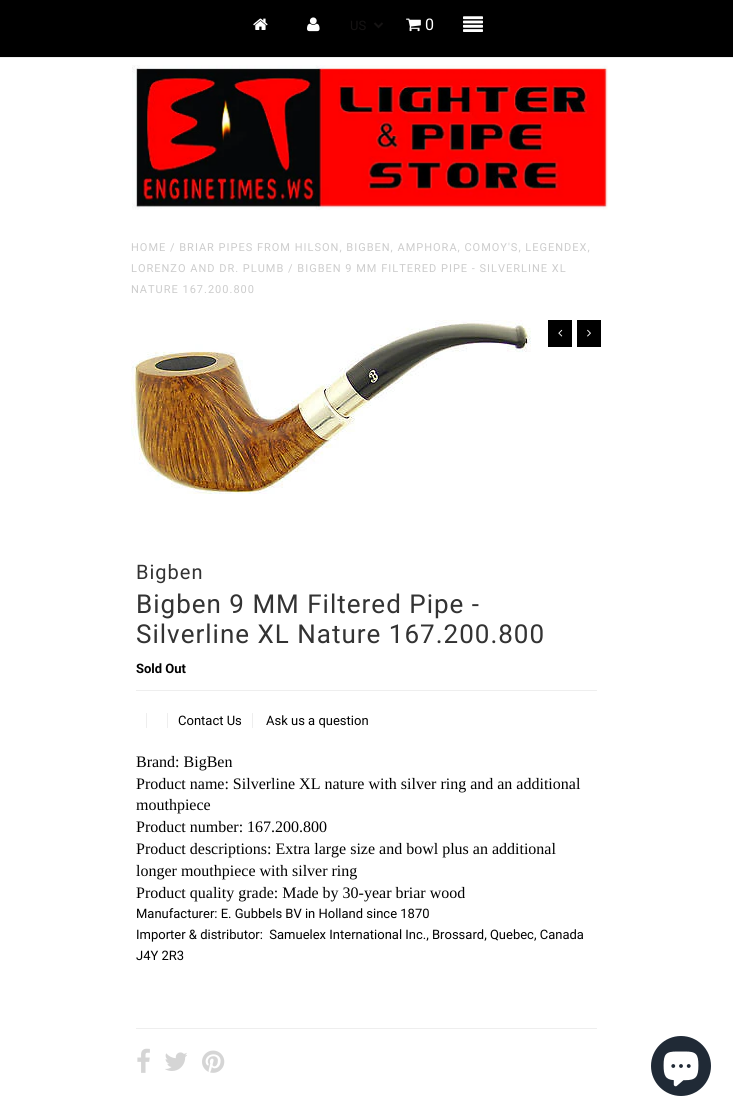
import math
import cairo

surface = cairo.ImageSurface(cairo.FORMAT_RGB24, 733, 1117)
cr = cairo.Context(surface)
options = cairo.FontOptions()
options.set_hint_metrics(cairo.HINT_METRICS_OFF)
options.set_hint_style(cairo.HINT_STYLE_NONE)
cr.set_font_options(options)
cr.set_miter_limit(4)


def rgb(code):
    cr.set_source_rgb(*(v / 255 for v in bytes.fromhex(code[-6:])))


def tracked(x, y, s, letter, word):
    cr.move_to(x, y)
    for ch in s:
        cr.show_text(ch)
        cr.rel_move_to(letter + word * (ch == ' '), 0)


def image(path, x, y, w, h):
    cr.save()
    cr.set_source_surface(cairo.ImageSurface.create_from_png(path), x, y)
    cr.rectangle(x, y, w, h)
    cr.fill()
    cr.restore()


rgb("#ffffff")
cr.paint()
rgb("#000000")
cr.rectangle(0, 0, 733, 57)
cr.fill()
rgb("#eeeeee")
cr.rectangle(0, 57, 733, 1)
cr.fill()
image("img/1.png", 253, 18, 15, 12)
image("img/2.png", 307, 17, 13, 15)
cr.new_path()
cr.move_to(374.5, 23)
cr.line_to(378.5, 27)
cr.line_to(382.5, 23)
rgb("#151313")
cr.stroke()
image("img/3.png", 406, 18, 15, 14)
image("img/4.png", 463, 16, 20, 16)
image("img/5.png", 132, 65, 476, 145)
image("img/6.png", 131, 320, 400, 174)
rgb("#000000")
cr.rectangle(548, 320, 24, 27)
cr.fill()
image("img/7.png", 558, 329, 5, 8)
cr.rectangle(577, 320, 24, 27)
cr.fill()
image("img/8.png", 587, 329, 4, 8)
for x, y, w, h, color in [
    (136, 690, 461, 1, "#eeeeee"),
    (146, 713, 1, 15, "#eeeeee"),
    (167, 713, 1, 15, "#eeeeee"),
    (252, 713, 1, 15, "#eeeeee"),
    (136, 1028, 461, 1, "#eeeeee"),
]:
    rgb(color)
    cr.rectangle(x, y, w, h)
    cr.fill()
image("img/9.png", 137, 1048, 13, 25)
image("img/10.png", 165, 1052, 22, 19)
image("img/11.png", 202, 1050, 23, 23)
rgb("#202a36")
cr.arc(681, 1066, 30, 0, 2 * math.pi)
cr.fill()
image("img/12.png", 663, 1051, 36, 36)
cr.select_font_face("Roboto")
cr.set_font_size(13)
rgb("#151313")
cr.move_to(350, 30)
cr.show_text("US")
cr.set_font_size(16)
rgb("#ffffff")
cr.move_to(425, 30)
cr.show_text("0")
cr.set_font_size(11)
rgb("#cccccc")
for x, y, s in [
    (131, 251, "HOME / BRIAR PIPES FROM HILSON, BIGBEN, AMPHORA, COMOY'S, LEGENDEX,"),
    (131, 272, "LORENZO AND DR. PLUMB / BIGBEN 9 MM FILTERED PIPE - SILVERLINE XL"),
    (131, 293, "NATURE 167.200.800"),
]:
    tracked(x, y, s, 1, 0)
cr.set_font_size(20)
rgb("#333333")
tracked(136, 579, "Bigben", 1, 0)
cr.set_font_size(26)
tracked(136, 613, "Bigben 9 MM Filtered Pipe -", 1, 0)
tracked(136, 643, "Silverline XL Nature 167.200.800", 1, 0)
cr.select_font_face("Roboto", cairo.FONT_SLANT_NORMAL, cairo.FONT_WEIGHT_BOLD)
cr.set_font_size(13)
rgb("#000000")
cr.move_to(136, 673)
cr.show_text("Sold Out")
cr.select_font_face("Roboto")
cr.move_to(178, 725)
cr.show_text("Contact Us")
cr.move_to(266, 725)
cr.show_text("Ask us a question")
cr.select_font_face("Liberation Serif")
cr.set_font_size(16)
for x, y, s in [
    (136, 767, "Brand: BigBen"),
    (136, 789, "Product name: Silverline XL nature with silver ring and an additional"),
    (136, 810, "mouthpiece"),
    (136, 832, "Product number: 167.200.800"),
    (136, 854, "Product descriptions: Extra large size and bowl plus an additional"),
    (136, 876, "longer mouthpiece with silver ring"),
    (136, 898, "Product quality grade: Made by 30-year briar wood"),
]:
    cr.move_to(x, y)
    cr.show_text(s)
cr.select_font_face("Roboto")
cr.set_font_size(13)
for x, y, s in [
    (136, 918, "Manufacturer: E. Gubbels BV in Holland since 1870"),
    (136, 939, "Importer & distributor:  Samuelex International Inc., Brossard, Quebec, Canada"),
    (136, 960, "J4Y 2R3"),
]:
    cr.move_to(x, y)
    cr.show_text(s)
surface.write_to_png("page.png")
